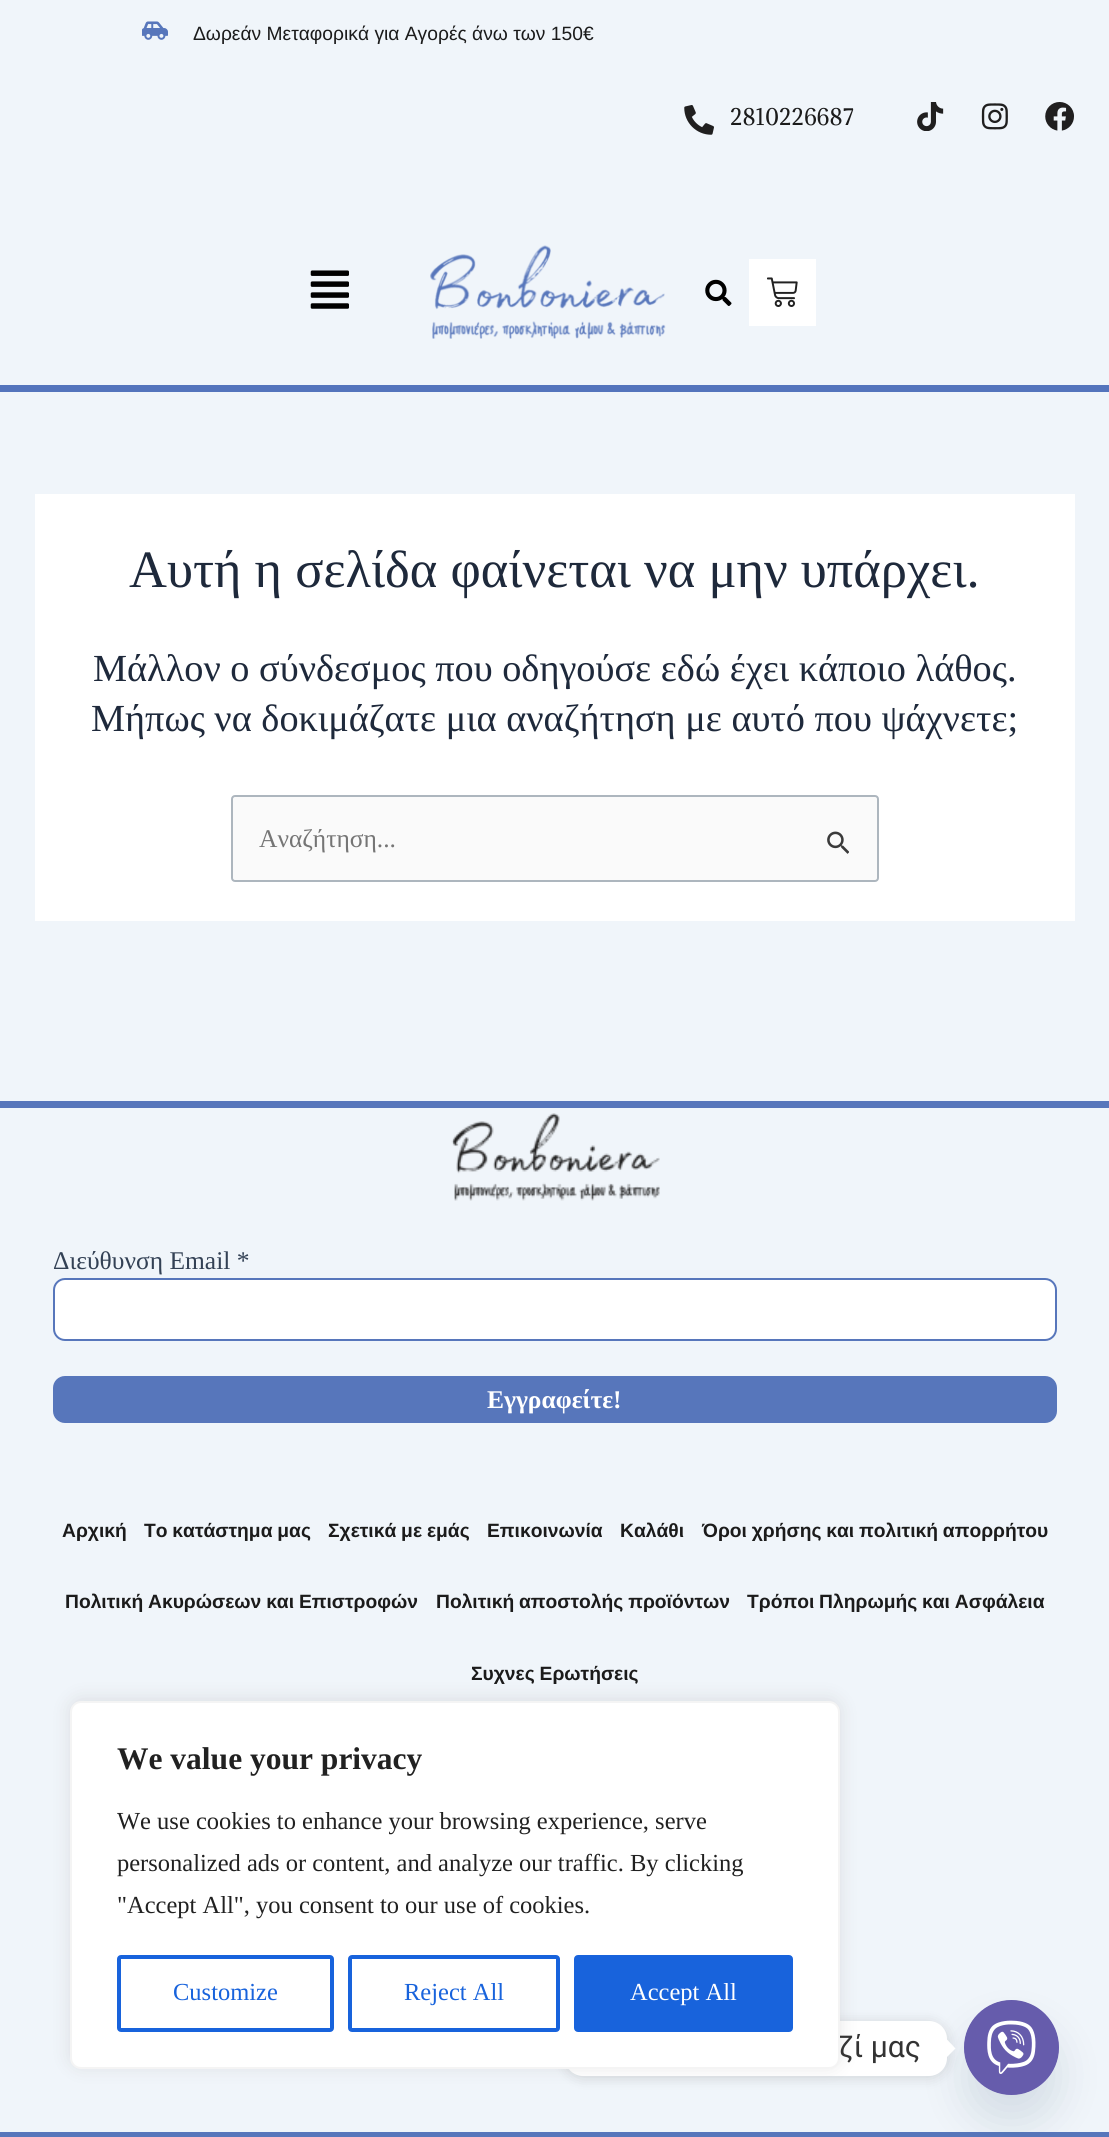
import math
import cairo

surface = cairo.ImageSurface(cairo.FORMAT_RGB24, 1109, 2137)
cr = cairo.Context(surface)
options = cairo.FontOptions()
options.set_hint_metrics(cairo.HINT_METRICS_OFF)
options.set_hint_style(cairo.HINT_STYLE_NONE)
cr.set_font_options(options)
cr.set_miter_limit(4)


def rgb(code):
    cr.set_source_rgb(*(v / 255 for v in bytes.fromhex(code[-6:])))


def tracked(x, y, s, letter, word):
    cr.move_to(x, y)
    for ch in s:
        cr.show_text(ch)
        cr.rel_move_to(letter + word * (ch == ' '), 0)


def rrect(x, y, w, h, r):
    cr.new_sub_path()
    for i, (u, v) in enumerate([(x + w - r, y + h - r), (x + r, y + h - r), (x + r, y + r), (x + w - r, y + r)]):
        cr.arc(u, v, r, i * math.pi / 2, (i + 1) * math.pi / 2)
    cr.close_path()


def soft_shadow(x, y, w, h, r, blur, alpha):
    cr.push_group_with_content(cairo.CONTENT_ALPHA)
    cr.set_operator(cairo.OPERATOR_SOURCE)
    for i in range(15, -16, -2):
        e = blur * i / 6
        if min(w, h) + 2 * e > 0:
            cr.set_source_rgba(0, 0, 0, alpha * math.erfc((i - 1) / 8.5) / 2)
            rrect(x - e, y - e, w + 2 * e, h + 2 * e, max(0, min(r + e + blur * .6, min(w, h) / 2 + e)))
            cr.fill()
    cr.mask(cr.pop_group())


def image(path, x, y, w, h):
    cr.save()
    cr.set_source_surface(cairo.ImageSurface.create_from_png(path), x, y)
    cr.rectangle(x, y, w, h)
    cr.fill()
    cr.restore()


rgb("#f0f5fa")
cr.paint()
rgb("#5474bc")
cr.rectangle(0, 385, 1109, 7)
cr.fill()
image("img/1.png", 142, 21, 26, 19)
image("img/2.png", 684, 105, 30, 30)
image("img/3.png", 917, 102, 27, 29)
image("img/4.png", 981, 103, 27, 27)
image("img/5.png", 1045, 102, 29, 29)
image("img/6.png", 310, 270, 39, 39)
image("img/7.png", 430, 245, 236, 94)
image("img/8.png", 705, 279, 27, 27)
rgb("#ffffff")
cr.rectangle(749, 259, 67, 67)
cr.fill()
image("img/9.png", 767, 277, 31, 30)
cr.rectangle(35, 494, 1040, 427)
cr.fill()
rgb("#fafafa")
rrect(232, 796, 646, 85, 3)
cr.fill_preserve()
rgb("#adb6be")
cr.stroke()
image("img/10.png", 827, 831, 22, 23)
rgb("#5776bb")
cr.rectangle(0, 1101, 1109, 7)
cr.fill()
cr.rectangle(0, 2132, 1109, 5)
cr.fill()
image("img/11.png", 451, 1113, 209, 88)
rgb("#ffffff")
rrect(54, 1279, 1002, 61, 11)
cr.fill_preserve()
rgb("#5776bb")
cr.stroke()
rrect(54, 1377, 1002, 45, 11)
cr.fill_preserve()
cr.stroke()
rgb("#49687e")
soft_shadow(964, 2028, 95, 95, 47.5, 21, 0.16)
rgb("#665cac")
cr.arc(1011.5, 2047.5, 47.5, 0, 2 * math.pi)
cr.fill()
image("img/12.png", 964, 2000, 95, 95)
rgb("#000000")
soft_shadow(565, 2023, 382, 54, 18, 7, 0.15)
rgb("#ffffff")
rrect(565, 2021, 382, 55, 18)
cr.fill()
rgb("#acabab")
soft_shadow(70, 1699, 770, 368, 11, 9, 0.3)
rgb("#ffffff")
cr.new_path()
cr.move_to(947, 2057)
cr.line_to(947, 2039.5)
cr.line_to(955.5, 2048.5)
cr.close_path()
cr.fill()
cr.select_font_face("Liberation Sans")
cr.set_font_size(19.25)
rgb("#1b1b1b")
cr.move_to(193, 40)
cr.show_text("Δωρεάν Μεταφορικά για Αγορές άνω των 150€")
cr.select_font_face("Adamina")
cr.set_font_size(21)
cr.move_to(730, 125)
cr.show_text("2810226687")
cr.select_font_face("Liberation Serif")
cr.set_font_size(52.5)
rgb("#1e293b")
cr.move_to(129, 587)
cr.show_text("Αυτή η σελίδα φαίνεται να μην υπάρχει.")
cr.set_font_size(38.3)
cr.move_to(93, 681)
cr.show_text("Μάλλον ο σύνδεσμος που οδηγούσε εδώ έχει κάποιο λάθος.")
cr.move_to(91, 731)
cr.show_text("Μήπως να δοκιμάζατε μια αναζήτηση με αυτό που ψάχνετε;")
cr.set_font_size(25.5)
rgb("#757575")
cr.move_to(259, 847)
cr.show_text("Αναζήτηση...")
rgb("#334155")
cr.move_to(53, 1269)
cr.show_text("Διεύθυνση Email *")
cr.select_font_face("Liberation Serif", cairo.FONT_SLANT_NORMAL, cairo.FONT_WEIGHT_BOLD)
rgb("#ffffff")
cr.move_to(487, 1408)
cr.show_text("Εγγραφείτε!")
cr.select_font_face("Liberation Sans", cairo.FONT_SLANT_NORMAL, cairo.FONT_WEIGHT_BOLD)
cr.set_font_size(19.25)
rgb("#1b1b1b")
cr.move_to(62, 1537)
cr.show_text("Αρχική")
tracked(144, 1537, "Το κατάστημα μας", 0, -0.5)
tracked(328, 1537, "Σχετικά με εμάς", 0, -0.5)
cr.move_to(487, 1537)
cr.show_text("Επικοινωνία")
cr.move_to(620, 1537)
cr.show_text("Καλάθι")
for x, y, s in [
    (702, 1537, "Όροι χρήσης και πολιτική απορρήτου"),
    (65, 1608, "Πολιτική Ακυρώσεων και Επιστροφών"),
    (436, 1608, "Πολιτική αποστολής προϊόντων"),
    (747, 1608, "Τρόποι Πληρωμής και Ασφάλεια"),
    (471, 1680, "Συχνες Ερωτήσεις"),
]:
    tracked(x, y, s, 0, -0.5)
cr.select_font_face("Roboto")
cr.set_font_size(30)
rgb("#333333")
cr.move_to(838, 2057)
cr.show_text("ζί μας")
rgb("#ffffff")
rrect(71, 1702, 768, 366, 10)
cr.fill_preserve()
rgb("#f4f4f4")
cr.stroke()
rgb("#1863dc")
rrect(576, 1957, 215, 73, 2)
cr.fill_preserve()
cr.set_line_width(4)
cr.stroke()
cr.select_font_face("Liberation Serif")
cr.set_font_size(24.5)
rgb("#ffffff")
cr.move_to(630, 2000)
cr.show_text("Accept All")
rrect(350, 1957, 208, 73, 2)
rgb("#1863dc")
cr.stroke()
cr.move_to(404, 2000)
cr.show_text("Reject All")
rrect(119, 1957, 213, 73, 2)
cr.stroke()
cr.move_to(173, 2000)
cr.show_text("Customize")
rgb("#212121")
for x, y, s in [
    (117, 1913, "\"Accept All\", you consent to our use of cookies."),
    (117, 1871, "personalized ads or content, and analyze our traffic. By clicking"),
    (117, 1829, "We use cookies to enhance your browsing experience, serve"),
]:
    cr.move_to(x, y)
    cr.show_text(s)
cr.select_font_face("Liberation Serif", cairo.FONT_SLANT_NORMAL, cairo.FONT_WEIGHT_BOLD)
cr.set_font_size(31.5)
cr.move_to(117, 1769)
cr.show_text("We value your privacy")
surface.write_to_png("page.png")
